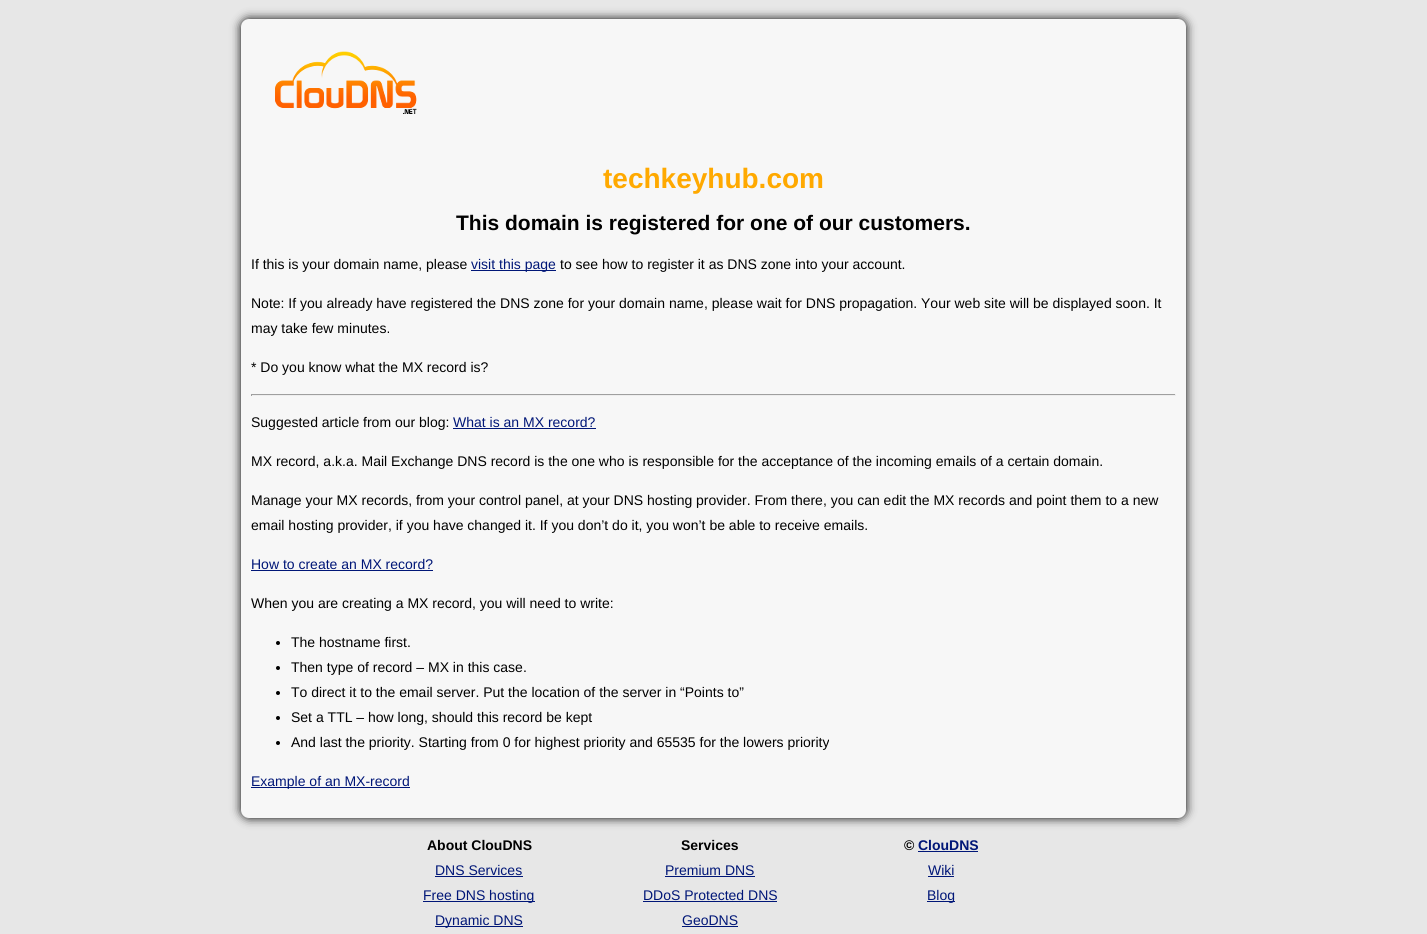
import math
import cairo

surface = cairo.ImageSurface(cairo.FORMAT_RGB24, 1427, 934)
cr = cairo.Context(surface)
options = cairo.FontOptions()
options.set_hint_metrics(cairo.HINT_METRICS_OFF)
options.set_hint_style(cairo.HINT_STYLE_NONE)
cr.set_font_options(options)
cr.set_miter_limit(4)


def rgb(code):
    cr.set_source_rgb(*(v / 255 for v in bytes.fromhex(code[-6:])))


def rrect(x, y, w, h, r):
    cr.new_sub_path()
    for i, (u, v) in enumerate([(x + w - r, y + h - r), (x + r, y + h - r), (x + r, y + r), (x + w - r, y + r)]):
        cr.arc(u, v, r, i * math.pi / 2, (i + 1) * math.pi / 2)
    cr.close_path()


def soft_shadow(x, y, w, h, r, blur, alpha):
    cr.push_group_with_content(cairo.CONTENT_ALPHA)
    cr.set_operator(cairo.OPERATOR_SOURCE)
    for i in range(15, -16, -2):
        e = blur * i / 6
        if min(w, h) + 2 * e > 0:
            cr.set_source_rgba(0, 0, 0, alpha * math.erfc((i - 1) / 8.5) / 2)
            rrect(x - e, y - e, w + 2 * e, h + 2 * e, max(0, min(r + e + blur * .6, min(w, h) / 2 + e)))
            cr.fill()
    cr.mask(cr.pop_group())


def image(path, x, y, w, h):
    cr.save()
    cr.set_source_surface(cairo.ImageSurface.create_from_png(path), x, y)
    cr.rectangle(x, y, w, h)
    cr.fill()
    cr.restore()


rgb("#e7e7e7")
cr.paint()
rgb("#000000")
soft_shadow(241, 19, 945, 799, 8, 5, 1)
rgb("#f7f7f7")
rrect(241, 19, 945, 799, 8)
cr.fill()
image("img/1.png", 275, 51, 142, 63)
for x, y, w, h, color in [
    (471, 270, 85, 1, "#001677"),
    (251, 394, 925, 1, "#9f9f9f"),
    (1175, 394, 1, 2, "#eeeeee"),
    (251, 395, 925, 1, "#eeeeee"),
    (251, 394, 1, 2, "#9f9f9f"),
    (453, 428, 143, 1, "#001677"),
    (251, 570, 182, 1, "#001677"),
]:
    rgb(color)
    cr.rectangle(x, y, w, h)
    cr.fill()
rgb("#000000")
cr.arc(278, 643, 2, 0, 2 * math.pi)
cr.fill()
cr.arc(278, 668, 2, 0, 2 * math.pi)
cr.fill()
cr.arc(278, 693, 2, 0, 2 * math.pi)
cr.fill()
cr.arc(278, 718, 2, 0, 2 * math.pi)
cr.fill()
cr.arc(278, 743, 2, 0, 2 * math.pi)
cr.fill()
for x, y, w, h, color in [
    (251, 787, 159, 1, "#001677"),
    (435, 876, 88, 1, "#001677"),
    (423, 901, 112, 1, "#001677"),
    (435, 926, 88, 1, "#001677"),
    (665, 876, 90, 1, "#001677"),
    (643, 901, 134, 1, "#001677"),
    (682, 926, 56, 1, "#001677"),
    (918, 851, 60, 1, "#001677"),
    (928, 876, 26, 1, "#001677"),
    (927, 901, 28, 1, "#001677"),
]:
    rgb(color)
    cr.rectangle(x, y, w, h)
    cr.fill()
cr.select_font_face("Liberation Sans", cairo.FONT_SLANT_NORMAL, cairo.FONT_WEIGHT_BOLD)
cr.set_font_size(28)
rgb("#ffa900")
cr.move_to(603, 188)
cr.show_text("techkeyhub.com")
cr.set_font_size(21)
rgb("#000000")
cr.move_to(456, 230)
cr.show_text("This domain is registered for one of our customers.")
cr.select_font_face("Liberation Sans")
cr.set_font_size(14)
cr.move_to(251, 269)
cr.show_text("If this is your domain name, please")
rgb("#001677")
cr.move_to(471, 269)
cr.show_text("visit this page")
rgb("#000000")
for x, y, s in [
    (560, 269, "to see how to register it as DNS zone into your account."),
    (251, 308, "Note: If you already have registered the DNS zone for your domain name, please wait for DNS propagation. Your web site will be displayed soon. It"),
    (251, 333, "may take few minutes."),
    (251, 372, "* Do you know what the MX record is?"),
    (251, 427, "Suggested article from our blog:"),
]:
    cr.move_to(x, y)
    cr.show_text(s)
rgb("#001677")
cr.move_to(453, 427)
cr.show_text("What is an MX record?")
rgb("#000000")
for x, y, s in [
    (251, 466, "MX record, a.k.a. Mail Exchange DNS record is the one who is responsible for the acceptance of the incoming emails of a certain domain."),
    (251, 505, "Manage your MX records, from your control panel, at your DNS hosting provider. From there, you can edit the MX records and point them to a new"),
    (251, 530, "email hosting provider, if you have changed it. If you don’t do it, you won’t be able to receive emails."),
]:
    cr.move_to(x, y)
    cr.show_text(s)
rgb("#001677")
cr.move_to(251, 569)
cr.show_text("How to create an MX record?")
rgb("#000000")
for x, y, s in [
    (251, 608, "When you are creating a MX record, you will need to write:"),
    (291, 647, "The hostname first."),
    (291, 672, "Then type of record – MX in this case."),
    (291, 697, "To direct it to the email server. Put the location of the server in “Points to”"),
    (291, 722, "Set a TTL – how long, should this record be kept"),
    (291, 747, "And last the priority. Starting from 0 for highest priority and 65535 for the lowers priority"),
]:
    cr.move_to(x, y)
    cr.show_text(s)
rgb("#001677")
cr.move_to(251, 786)
cr.show_text("Example of an MX-record")
cr.select_font_face("Liberation Sans", cairo.FONT_SLANT_NORMAL, cairo.FONT_WEIGHT_BOLD)
rgb("#000000")
cr.move_to(427, 850)
cr.show_text("About ClouDNS")
cr.select_font_face("Liberation Sans")
rgb("#001677")
for x, y, s in [
    (435, 875, "DNS Services"),
    (423, 900, "Free DNS hosting"),
    (435, 925, "Dynamic DNS"),
]:
    cr.move_to(x, y)
    cr.show_text(s)
cr.select_font_face("Liberation Sans", cairo.FONT_SLANT_NORMAL, cairo.FONT_WEIGHT_BOLD)
rgb("#000000")
cr.move_to(681, 850)
cr.show_text("Services")
cr.select_font_face("Liberation Sans")
rgb("#001677")
for x, y, s in [
    (665, 875, "Premium DNS"),
    (643, 900, "DDoS Protected DNS"),
    (682, 925, "GeoDNS"),
]:
    cr.move_to(x, y)
    cr.show_text(s)
cr.select_font_face("Liberation Sans", cairo.FONT_SLANT_NORMAL, cairo.FONT_WEIGHT_BOLD)
rgb("#000000")
cr.move_to(904, 850)
cr.show_text("©")
rgb("#001677")
cr.move_to(918, 850)
cr.show_text("ClouDNS")
cr.select_font_face("Liberation Sans")
cr.move_to(928, 875)
cr.show_text("Wiki")
cr.move_to(927, 900)
cr.show_text("Blog")
surface.write_to_png("page.png")
